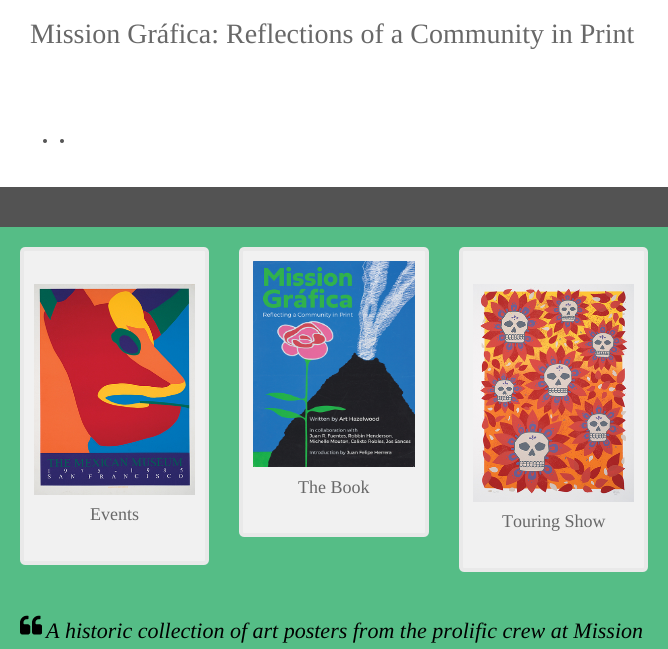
import math
import cairo

surface = cairo.ImageSurface(cairo.FORMAT_RGB24, 668, 649)
cr = cairo.Context(surface)
options = cairo.FontOptions()
options.set_hint_metrics(cairo.HINT_METRICS_OFF)
options.set_hint_style(cairo.HINT_STYLE_NONE)
cr.set_font_options(options)
cr.set_miter_limit(4)


def rgb(code):
    cr.set_source_rgb(*(v / 255 for v in bytes.fromhex(code[-6:])))


def rrect(x, y, w, h, r):
    cr.new_sub_path()
    for i, (u, v) in enumerate([(x + w - r, y + h - r), (x + r, y + h - r), (x + r, y + r), (x + w - r, y + r)]):
        cr.arc(u, v, r, i * math.pi / 2, (i + 1) * math.pi / 2)
    cr.close_path()


def image(path, x, y, w, h):
    cr.save()
    cr.set_source_surface(cairo.ImageSurface.create_from_png(path), x, y)
    cr.rectangle(x, y, w, h)
    cr.fill()
    cr.restore()


rgb("#55bd86")
cr.paint()
rgb("#ffffff")
cr.rectangle(0, 0, 668, 187)
cr.fill()
rgb("#575757")
cr.arc(45, 141, 2, 0, 2 * math.pi)
cr.fill()
cr.arc(62, 141, 2, 0, 2 * math.pi)
cr.fill()
rgb("#535353")
cr.rectangle(0, 187, 668, 40)
cr.fill()
rgb("#f1f1f1")
rrect(241, 249, 186, 286, 3)
cr.fill_preserve()
rgb("#e9e9e9")
cr.set_line_width(4)
cr.stroke()
image("img/1.png", 253, 261, 162, 206)
rgb("#f1f1f1")
rrect(22, 249, 185, 314, 3)
cr.fill_preserve()
rgb("#e9e9e9")
cr.stroke()
image("img/2.png", 34, 284, 161, 211)
rgb("#f1f1f1")
rrect(461, 249, 185, 321, 3)
cr.fill_preserve()
rgb("#e9e9e9")
cr.stroke()
image("img/3.png", 473, 284, 161, 218)
image("img/4.png", 20, 615, 22, 20)
cr.select_font_face("Liberation Serif")
cr.set_font_size(28)
rgb("#686868")
cr.move_to(30, 43)
cr.show_text("Mission Gráfica: Reflections of a Community in Print")
cr.set_font_size(18)
for x, y, s in [
    (298, 493, "The Book"),
    (90, 520, "Events"),
    (502, 527, "Touring Show"),
]:
    cr.move_to(x, y)
    cr.show_text(s)
cr.select_font_face("Liberation Serif", cairo.FONT_SLANT_ITALIC)
cr.set_font_size(22)
rgb("#000000")
cr.move_to(46, 638)
cr.show_text("A historic collection of art posters from the prolific crew at Mission")
surface.write_to_png("page.png")
